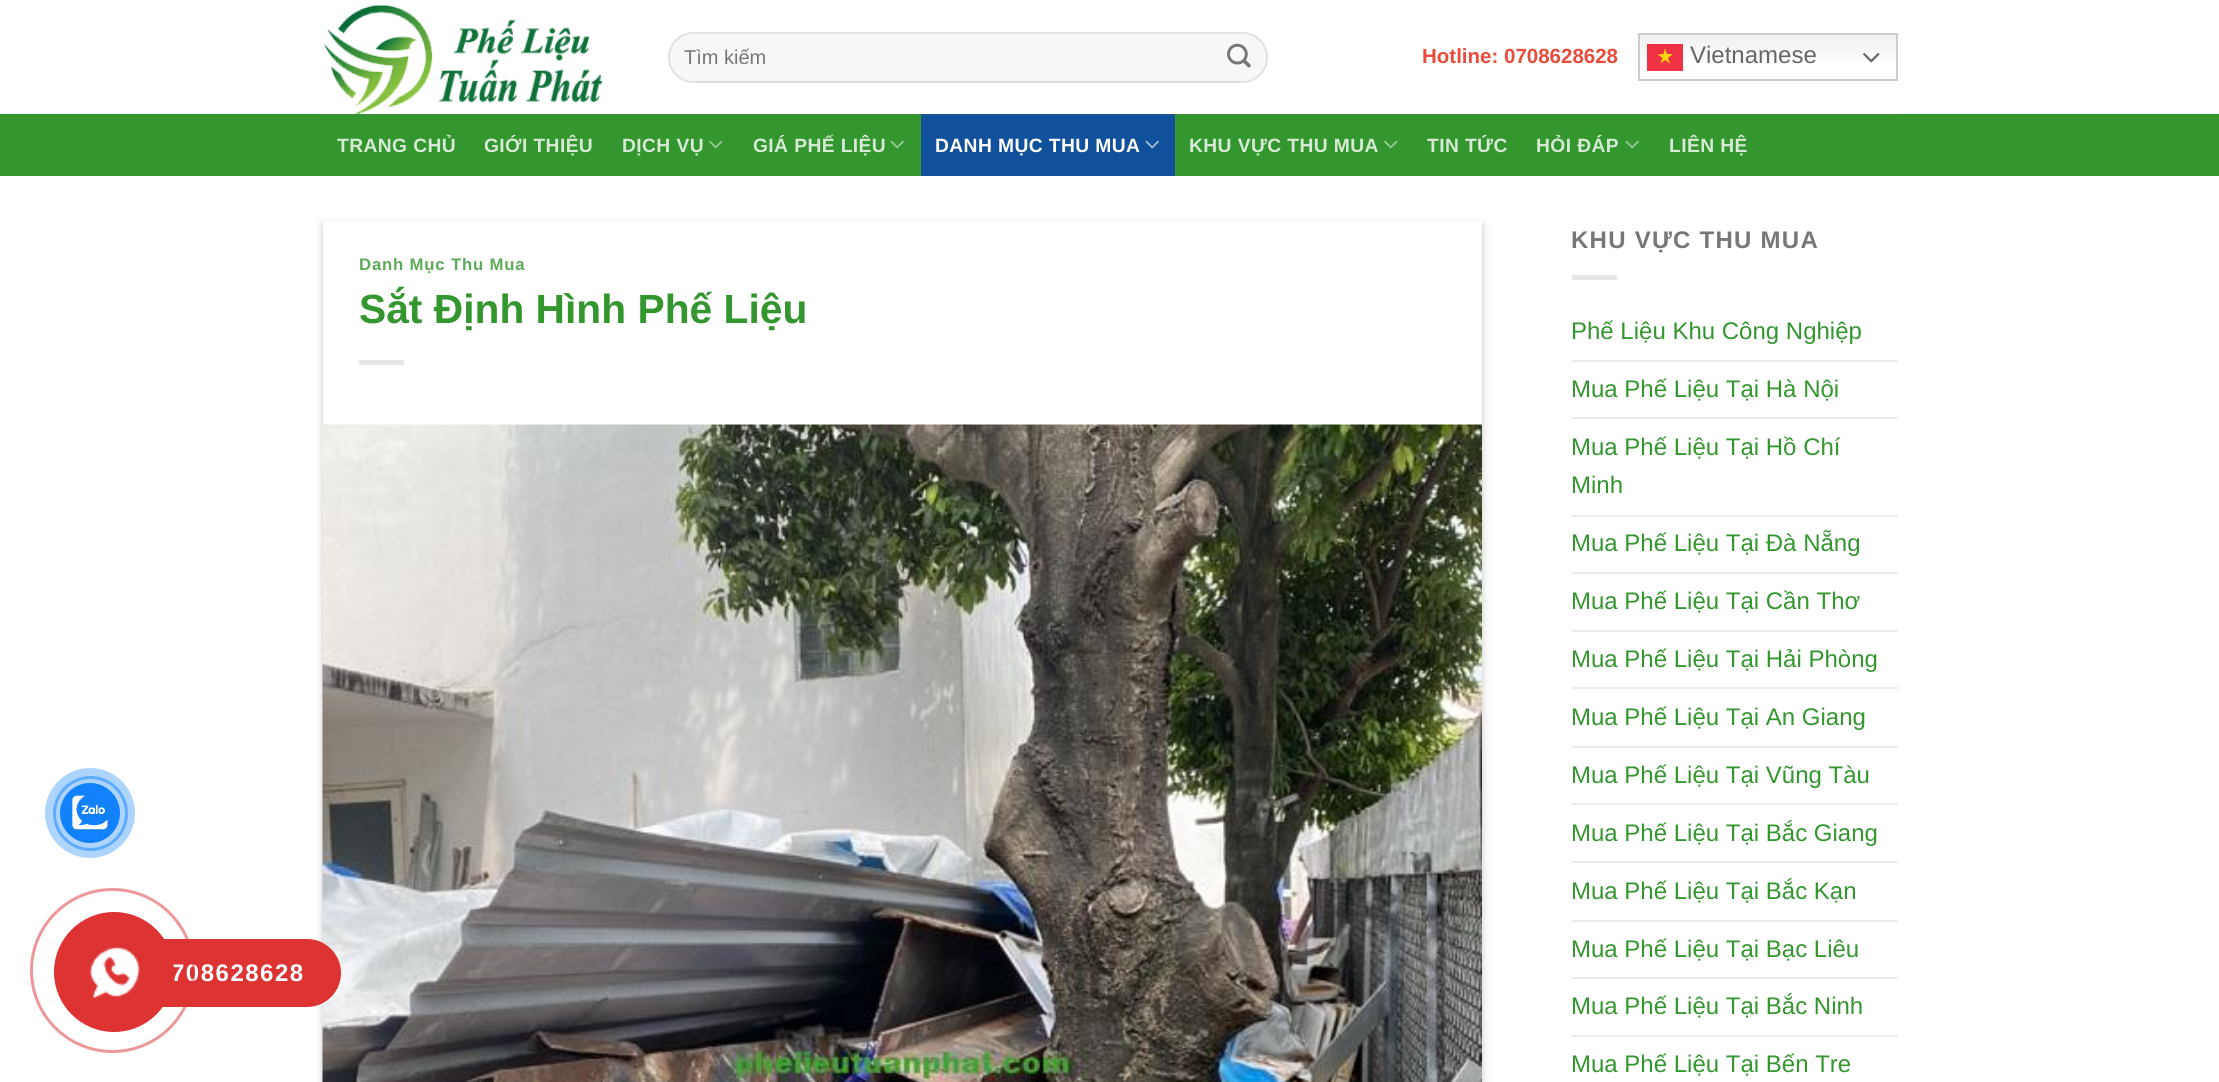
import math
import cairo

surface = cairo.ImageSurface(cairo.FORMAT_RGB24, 2219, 1082)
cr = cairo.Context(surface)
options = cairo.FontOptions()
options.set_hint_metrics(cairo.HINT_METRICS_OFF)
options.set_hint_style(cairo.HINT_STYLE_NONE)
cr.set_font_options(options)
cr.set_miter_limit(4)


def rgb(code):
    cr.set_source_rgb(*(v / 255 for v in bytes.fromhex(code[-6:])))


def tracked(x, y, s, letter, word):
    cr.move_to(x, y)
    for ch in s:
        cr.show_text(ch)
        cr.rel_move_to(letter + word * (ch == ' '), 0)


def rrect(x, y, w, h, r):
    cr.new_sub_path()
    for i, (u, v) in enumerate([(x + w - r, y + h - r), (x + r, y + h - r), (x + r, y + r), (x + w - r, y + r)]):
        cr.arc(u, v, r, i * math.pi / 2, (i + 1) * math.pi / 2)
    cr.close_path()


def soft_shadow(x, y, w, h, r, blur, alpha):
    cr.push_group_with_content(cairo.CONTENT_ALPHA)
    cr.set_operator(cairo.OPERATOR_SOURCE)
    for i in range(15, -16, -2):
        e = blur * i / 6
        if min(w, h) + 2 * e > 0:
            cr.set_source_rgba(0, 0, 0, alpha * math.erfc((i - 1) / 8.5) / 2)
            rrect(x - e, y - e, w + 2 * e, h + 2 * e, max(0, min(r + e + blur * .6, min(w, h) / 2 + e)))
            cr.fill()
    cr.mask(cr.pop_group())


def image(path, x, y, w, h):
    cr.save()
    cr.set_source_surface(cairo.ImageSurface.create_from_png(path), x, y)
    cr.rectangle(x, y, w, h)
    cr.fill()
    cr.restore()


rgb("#ffffff")
cr.paint()
cr.arc(90.5, 813.5, 36, 0, 2 * math.pi)
rgb("#88c1fe")
cr.set_line_width(3)
cr.stroke()
cr.set_source_rgba(0.067, 0.51, 0.988, 0.34)
cr.arc(90, 813, 45, 0, 2 * math.pi)
cr.fill()
rgb("#1182fc")
cr.arc(90, 813, 30, 0, 2 * math.pi)
cr.fill()
image("img/1.png", 72, 795, 36, 35)
image("img/2.png", 323, 4, 280, 110)
rgb("#f7f7f7")
rrect(668, 32, 600, 51, 25.5)
cr.fill()
rrect(669, 33, 598, 49, 24.5)
cr.set_source_rgba(0, 0, 0, 0.09)
cr.set_line_width(2)
cr.stroke()
image("img/3.png", 1227, 43, 24, 25)
gradient = cairo.LinearGradient(1768, 33, 1768, 81)
gradient.add_color_stop_rgba(0, 0.937, 0.937, 0.937, 1)
gradient.add_color_stop_rgba(0.7, 1, 1, 1, 1)
cr.set_source(gradient)
cr.rectangle(1640, 35, 256, 26)
cr.fill()
gradient = cairo.LinearGradient(1768, 33, 1768, 81)
gradient.add_color_stop_rgba(0, 0.929, 0.188, 0.255, 1)
gradient.add_color_stop_rgba(0.7, 0.941, 0.2, 0.267, 1)
cr.set_source(gradient)
cr.rectangle(1647, 44, 36, 27)
cr.fill()
cr.rectangle(1639, 34, 258, 46)
rgb("#cccccc")
cr.stroke()
rgb("#fcd60d")
cr.set_fill_rule(cairo.FILL_RULE_EVEN_ODD)
cr.new_path()
cr.move_to(1670, 63.5)
cr.line_to(1665, 60)
cr.line_to(1660.5, 63.5)
cr.line_to(1662.5, 58)
cr.line_to(1657.5, 54.5)
cr.line_to(1663.5, 54)
cr.line_to(1665, 48.5)
cr.line_to(1667, 54)
cr.line_to(1673, 54)
cr.line_to(1668, 58)
cr.close_path()
cr.fill()
image("img/4.png", 1863, 53, 17, 10)
rgb("#33962e")
cr.rectangle(0, 114, 2219, 62)
cr.fill()
rgb("#3a9335")
cr.rectangle(323, 114, 1575, 2)
cr.fill()
image("img/5.png", 709, 140, 14, 9)
image("img/6.png", 890, 140, 14, 9)
rgb("#11519b")
cr.rectangle(921, 116, 254, 60)
cr.fill()
rgb("#1b5597")
cr.rectangle(921, 114, 254, 2)
cr.fill()
image("img/7.png", 1145, 140, 14, 9)
image("img/5.png", 1384, 140, 14, 9)
image("img/6.png", 1625, 140, 14, 9)
cr.save()
cr.new_path()
cr.move_to(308, 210)
cr.line_to(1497, 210)
cr.line_to(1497, 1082)
cr.line_to(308, 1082)
cr.close_path()
cr.move_to(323, 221)
cr.line_to(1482, 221)
cr.line_to(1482, 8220)
cr.line_to(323, 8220)
cr.close_path()
cr.clip()
rgb("#000000")
soft_shadow(323, 225, 1159, 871, 0, 4.5, 0.23)
cr.restore()
rgb("#e6e6e6")
cr.rectangle(359, 360, 45, 5)
cr.fill()
image("img/8.png", 322, 424, 1160, 658)
for x, y, w, h, color in [
    (1572, 275, 45, 5, "#e6e6e6"),
    (1572, 360, 326, 2, "#ececec"),
    (1572, 417, 326, 2, "#ececec"),
    (1572, 515, 326, 2, "#ececec"),
    (1572, 572, 326, 2, "#ececec"),
    (1572, 630, 326, 2, "#ececec"),
    (1572, 687, 326, 2, "#ececec"),
    (1572, 746, 326, 2, "#ececec"),
    (1572, 803, 326, 2, "#ececec"),
    (1572, 861, 326, 2, "#ececec"),
    (1572, 920, 326, 2, "#ececec"),
    (1572, 977, 326, 2, "#ececec"),
    (1572, 1035, 326, 2, "#ececec"),
]:
    rgb(color)
    cr.rectangle(x, y, w, h)
    cr.fill()
rgb("#dd3333")
rrect(93, 939, 248, 68, 34)
cr.fill()
cr.select_font_face("Liberation Sans")
cr.set_font_size(20)
rgb("#777777")
cr.move_to(684, 64)
cr.show_text("Tìm kiếm")
cr.select_font_face("Liberation Sans", cairo.FONT_SLANT_NORMAL, cairo.FONT_WEIGHT_BOLD)
cr.set_font_size(20.5)
rgb("#e74c3c")
cr.move_to(1422, 63)
cr.show_text("Hotline: 0708628628")
cr.select_font_face("Liberation Sans")
cr.set_font_size(24)
rgb("#666666")
cr.move_to(1690, 63)
cr.show_text("Vietnamese")
cr.select_font_face("Liberation Sans", cairo.FONT_SLANT_NORMAL, cairo.FONT_WEIGHT_BOLD)
cr.set_font_size(19.25)
rgb("#d6ead5")
for x, y, s in [
    (337, 152, "TRANG CHỦ"),
    (484, 152, "GIỚI THIỆU"),
    (622, 152, "DỊCH VỤ"),
    (753, 152, "GIÁ PHẾ LIỆU"),
]:
    tracked(x, y, s, 0.4, 0)
rgb("#ffffff")
tracked(935, 152, "DANH MỤC THU MUA", 0.4, 0)
rgb("#d6ead5")
for x, y, s in [
    (1189, 152, "KHU VỰC THU MUA"),
    (1427, 152, "TIN TỨC"),
    (1536, 152, "HỎI ĐÁP"),
    (1669, 152, "LIÊN HỆ"),
]:
    tracked(x, y, s, 0.4, 0)
cr.set_font_size(16.75)
rgb("#5cab58")
tracked(359, 270, "Danh Mục Thu Mua", 0.8, 0)
cr.set_font_size(40.75)
rgb("#33962e")
cr.move_to(359, 323)
cr.show_text("Sắt Định Hình Phế Liệu")
cr.set_font_size(24)
rgb("#777777")
tracked(1571, 248, "KHU VỰC THU MUA", 1.25, 0)
cr.select_font_face("Liberation Sans")
rgb("#33962e")
for x, y, s in [
    (1571, 339, "Phế Liệu Khu Công Nghiệp"),
    (1571, 397, "Mua Phế Liệu Tại Hà Nội"),
    (1571, 455, "Mua Phế Liệu Tại Hồ Chí"),
    (1571, 493, "Minh"),
    (1571, 551, "Mua Phế Liệu Tại Đà Nẵng"),
    (1571, 609, "Mua Phế Liệu Tại Cần Thơ"),
    (1571, 667, "Mua Phế Liệu Tại Hải Phòng"),
    (1571, 725, "Mua Phế Liệu Tại An Giang"),
    (1571, 783, "Mua Phế Liệu Tại Vũng Tàu"),
    (1571, 841, "Mua Phế Liệu Tại Bắc Giang"),
    (1571, 899, "Mua Phế Liệu Tại Bắc Kạn"),
    (1571, 957, "Mua Phế Liệu Tại Bạc Liêu"),
    (1571, 1014, "Mua Phế Liệu Tại Bắc Ninh"),
    (1571, 1072, "Mua Phế Liệu Tại Bến Tre"),
]:
    cr.move_to(x, y)
    cr.show_text(s)
cr.select_font_face("Liberation Sans", cairo.FONT_SLANT_NORMAL, cairo.FONT_WEIGHT_BOLD)
rgb("#ffffff")
tracked(171, 981, "708628628", 1.5, 0)
cr.new_path()
cr.arc(112.5, 970.5, 81, 0, 2 * math.pi)
cr.set_source_rgba(0.867, 0.2, 0.2, 0.5)
cr.set_line_width(3)
cr.stroke()
rgb("#dd3333")
cr.arc(114, 972, 60, 0, 2 * math.pi)
cr.fill()
image("img/9.png", 89, 947, 51, 51)
surface.write_to_png("page.png")
